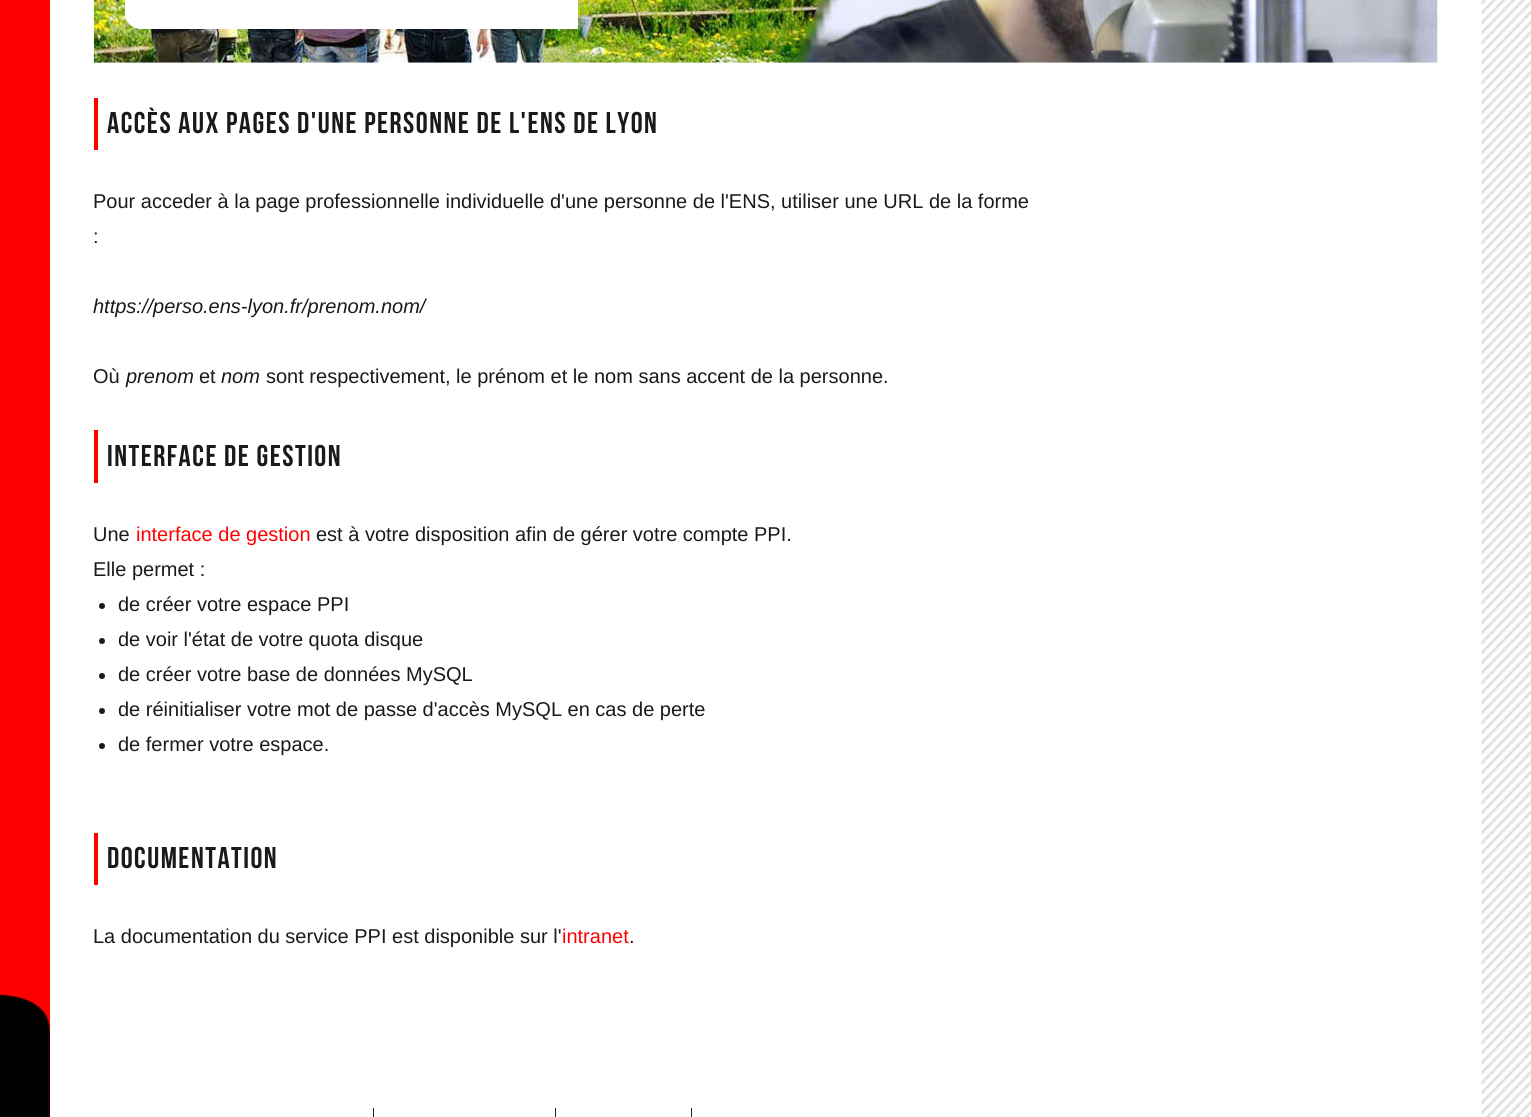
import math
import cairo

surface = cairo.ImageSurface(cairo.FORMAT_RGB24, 1531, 1117)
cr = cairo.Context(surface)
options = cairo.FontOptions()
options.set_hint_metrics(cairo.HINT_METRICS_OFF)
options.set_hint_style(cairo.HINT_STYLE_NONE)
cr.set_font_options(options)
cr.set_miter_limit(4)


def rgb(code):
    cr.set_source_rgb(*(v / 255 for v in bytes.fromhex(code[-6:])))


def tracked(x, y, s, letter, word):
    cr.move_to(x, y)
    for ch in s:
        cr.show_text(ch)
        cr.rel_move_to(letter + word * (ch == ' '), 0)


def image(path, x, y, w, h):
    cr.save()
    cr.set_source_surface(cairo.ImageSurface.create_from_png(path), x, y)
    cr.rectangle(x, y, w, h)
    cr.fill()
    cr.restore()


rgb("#ffffff")
cr.paint()
rgb("#ff0000")
cr.rectangle(0, 0, 50, 1117)
cr.fill()
image("img/1.png", 0, 994, 50, 123)
image("img/2.png", 93, 0, 1345, 63)
rgb("#ffffff")
cr.new_path()
cr.move_to(125, -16)
cr.line_to(578, -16)
cr.line_to(578, 29)
cr.line_to(141, 29)
cr.curve_to(132, 29, 125, 22, 125, 13)
cr.close_path()
cr.fill()
rgb("#ff0000")
cr.rectangle(94, 98, 4, 52)
cr.fill()
cr.rectangle(94, 430, 4, 53)
cr.fill()
rgb("#1a1a1a")
cr.arc(102, 606, 3, 0, 2 * math.pi)
cr.fill()
cr.arc(102, 641, 3, 0, 2 * math.pi)
cr.fill()
cr.arc(102, 676, 3, 0, 2 * math.pi)
cr.fill()
cr.arc(102, 711, 3, 0, 2 * math.pi)
cr.fill()
cr.arc(102, 746, 3, 0, 2 * math.pi)
cr.fill()
for x, y, w, h, color in [
    (94, 833, 4, 52, "#ff0000"),
    (373, 1108, 1, 9, "#272727"),
    (555, 1108, 1, 9, "#272727"),
    (691, 1108, 1, 9, "#272727"),
]:
    rgb(color)
    cr.rectangle(x, y, w, h)
    cr.fill()
image("img/3.png", 1481, 0, 50, 1117)
cr.select_font_face("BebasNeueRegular")
cr.set_font_size(30)
rgb("#1a1a1a")
tracked(107, 133, "Accès aux pages d'une personne de l'ENS de Lyon", 1.5, 0)
cr.select_font_face("Liberation Sans")
cr.set_font_size(20)
cr.move_to(93, 208)
cr.show_text("Pour acceder à la page professionnelle individuelle d'une personne de l'ENS, utiliser une URL de la forme")
cr.move_to(93, 243)
cr.show_text(":")
cr.select_font_face("Liberation Sans", cairo.FONT_SLANT_ITALIC)
cr.move_to(93, 313)
cr.show_text("https://perso.ens-lyon.fr/prenom.nom/")
cr.select_font_face("Liberation Sans")
cr.move_to(93, 383)
cr.show_text("Où")
cr.select_font_face("Liberation Sans", cairo.FONT_SLANT_ITALIC)
cr.move_to(126, 383)
cr.show_text("prenom")
cr.select_font_face("Liberation Sans")
cr.move_to(199, 383)
cr.show_text("et")
cr.select_font_face("Liberation Sans", cairo.FONT_SLANT_ITALIC)
cr.move_to(221, 383)
cr.show_text("nom")
cr.select_font_face("Liberation Sans")
cr.move_to(266, 383)
cr.show_text("sont respectivement, le prénom et le nom sans accent de la personne.")
cr.select_font_face("BebasNeueRegular")
cr.set_font_size(30)
tracked(107, 466, "Interface de gestion", 1.5, 0)
cr.select_font_face("Liberation Sans")
cr.set_font_size(20)
cr.move_to(93, 541)
cr.show_text("Une")
rgb("#ff0000")
cr.move_to(136, 541)
cr.show_text("interface de gestion")
rgb("#1a1a1a")
for x, y, s in [
    (316, 541, "est à votre disposition afin de gérer votre compte PPI."),
    (93, 576, "Elle permet :"),
    (118, 611, "de créer votre espace PPI"),
    (118, 646, "de voir l'état de votre quota disque"),
    (118, 681, "de créer votre base de données MySQL"),
    (118, 716, "de réinitialiser votre mot de passe d'accès MySQL en cas de perte"),
    (118, 751, "de fermer votre espace."),
]:
    cr.move_to(x, y)
    cr.show_text(s)
cr.select_font_face("BebasNeueRegular")
cr.set_font_size(30)
tracked(107, 868, "Documentation", 1.5, 0)
cr.select_font_face("Liberation Sans")
cr.set_font_size(20)
cr.move_to(93, 943)
cr.show_text("La documentation du service PPI est disponible sur l'")
rgb("#ff0000")
cr.move_to(562, 943)
cr.show_text("intranet")
rgb("#1a1a1a")
cr.move_to(629, 943)
cr.show_text(".")
surface.write_to_png("page.png")
